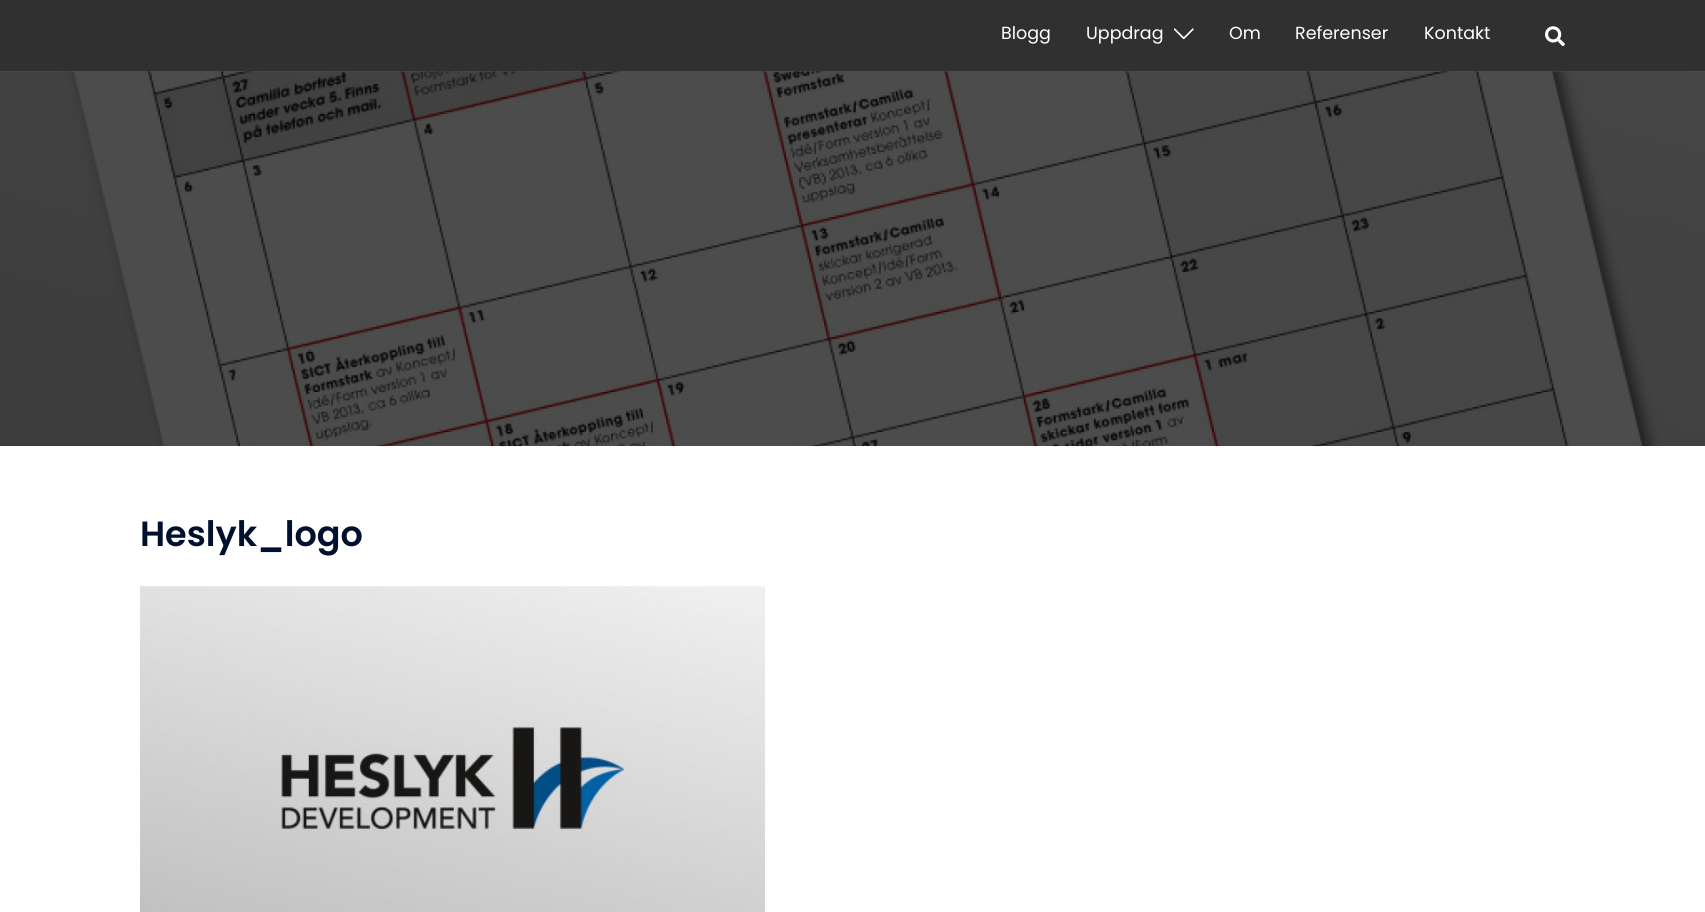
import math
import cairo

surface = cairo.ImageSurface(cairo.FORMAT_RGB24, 1705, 912)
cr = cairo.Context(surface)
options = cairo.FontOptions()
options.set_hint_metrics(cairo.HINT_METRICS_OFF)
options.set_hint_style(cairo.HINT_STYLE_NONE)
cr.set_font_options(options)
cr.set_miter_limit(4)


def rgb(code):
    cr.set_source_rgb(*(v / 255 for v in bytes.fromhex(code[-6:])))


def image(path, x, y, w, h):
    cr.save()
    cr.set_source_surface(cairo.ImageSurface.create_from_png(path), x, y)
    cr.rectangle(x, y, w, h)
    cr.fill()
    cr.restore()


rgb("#ffffff")
cr.paint()
rgb("#4d4d4d")
cr.rectangle(0, 71, 1705, 1)
cr.fill()
rgb("#303030")
cr.rectangle(0, 0, 1705, 71)
cr.fill()
image("img/1.png", 1174, 28, 20, 12)
image("img/2.png", 1545, 26, 20, 20)
image("img/3.png", 0, 71, 1705, 376)
image("img/4.png", 140, 586, 625, 326)
cr.select_font_face("Poppins")
cr.set_font_size(17.5)
rgb("#ffffff")
for x, y, s in [
    (1001, 39, "Blogg"),
    (1086, 39, "Uppdrag"),
    (1229, 39, "Om"),
    (1295, 39, "Referenser"),
    (1424, 39, "Kontakt"),
]:
    cr.move_to(x, y)
    cr.show_text(s)
cr.select_font_face("Poppins SemiBold")
cr.set_font_size(35)
rgb("#00102e")
cr.move_to(140, 546)
cr.show_text("Heslyk_logo")
surface.write_to_png("page.png")
